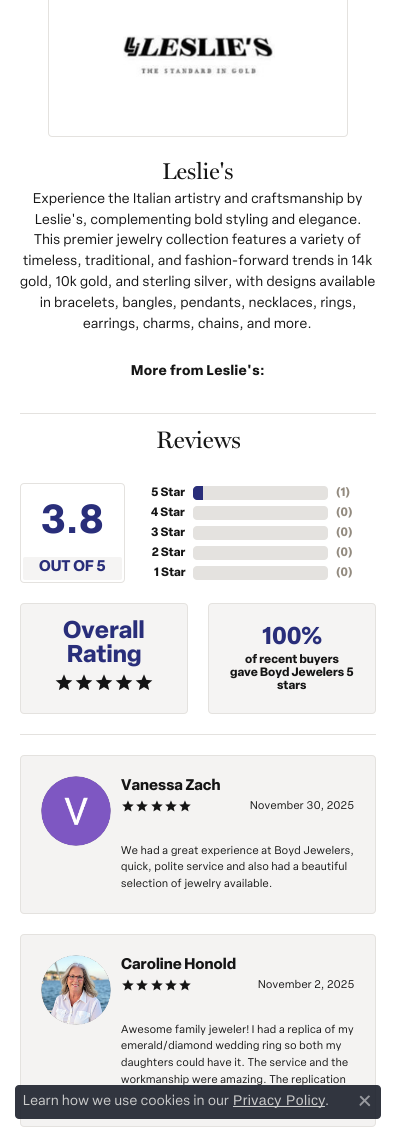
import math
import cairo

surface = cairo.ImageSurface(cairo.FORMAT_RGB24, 396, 1134)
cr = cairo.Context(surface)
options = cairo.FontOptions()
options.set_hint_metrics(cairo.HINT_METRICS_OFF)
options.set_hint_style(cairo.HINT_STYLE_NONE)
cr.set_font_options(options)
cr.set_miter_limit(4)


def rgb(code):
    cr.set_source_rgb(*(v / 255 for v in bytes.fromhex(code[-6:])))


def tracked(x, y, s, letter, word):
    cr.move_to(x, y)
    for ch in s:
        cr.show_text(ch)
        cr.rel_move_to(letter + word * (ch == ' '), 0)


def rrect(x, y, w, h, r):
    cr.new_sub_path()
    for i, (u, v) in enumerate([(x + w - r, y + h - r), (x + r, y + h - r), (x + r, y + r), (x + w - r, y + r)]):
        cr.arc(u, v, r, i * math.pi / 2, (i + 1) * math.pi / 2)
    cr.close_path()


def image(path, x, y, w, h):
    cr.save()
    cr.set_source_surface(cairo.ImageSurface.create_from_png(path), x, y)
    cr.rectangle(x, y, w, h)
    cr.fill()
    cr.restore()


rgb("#ffffff")
cr.paint()
rrect(48.5, -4.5, 299, 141, 3.5)
rgb("#e4e2df")
cr.set_line_width(1)
cr.stroke()
image("img/1.png", 123, 35, 152, 42)
cr.rectangle(20, 413, 356, 1)
cr.fill()
rrect(20.5, 483.5, 104, 99, 3.5)
cr.stroke()
rgb("#f5f4f3")
rrect(23, 557, 99, 23, 2)
cr.fill()
rgb("#e4e2df")
rrect(193, 486, 135, 14, 4)
cr.fill()
rgb("#292e7a")
cr.new_path()
cr.move_to(197, 486)
cr.line_to(203, 486)
cr.line_to(203, 500)
cr.line_to(197, 500)
cr.curve_to(195, 500, 193, 498, 193, 496)
cr.line_to(193, 490)
cr.curve_to(193, 488, 195, 486, 197, 486)
cr.close_path()
cr.fill()
rgb("#e4e2df")
rrect(193, 506, 135, 14, 4)
cr.fill()
rrect(193, 526, 135, 14, 4)
cr.fill()
rrect(193, 546, 135, 14, 4)
cr.fill()
rrect(193, 566, 135, 14, 4)
cr.fill()
rgb("#f5f4f3")
rrect(20.5, 603.5, 167, 110, 3.5)
cr.fill_preserve()
rgb("#e4e2df")
cr.stroke()
image("img/2.png", 55, 674, 18, 16)
image("img/2.png", 75, 674, 18, 16)
image("img/2.png", 95, 674, 18, 16)
image("img/2.png", 115, 674, 18, 16)
image("img/2.png", 135, 674, 18, 16)
rgb("#f5f4f3")
rrect(208.5, 603.5, 167, 110, 3.5)
cr.fill_preserve()
rgb("#e4e2df")
cr.stroke()
cr.rectangle(20, 734, 356, 1)
cr.fill()
rgb("#f4f3f2")
rrect(20.5, 755.5, 355, 158, 3.5)
cr.fill_preserve()
rgb("#e4e2df")
cr.stroke()
image("img/3.png", 41, 776, 70, 70)
image("img/4.png", 122, 800, 12, 12)
image("img/4.png", 136, 800, 12, 12)
image("img/4.png", 151, 800, 12, 12)
image("img/4.png", 165, 800, 12, 12)
image("img/4.png", 179, 800, 12, 12)
rgb("#f4f3f2")
rrect(20.5, 934.5, 355, 192, 3.5)
cr.fill_preserve()
rgb("#e4e2df")
cr.stroke()
image("img/5.png", 41, 955, 70, 70)
image("img/4.png", 122, 979, 12, 12)
image("img/4.png", 136, 979, 12, 12)
image("img/4.png", 151, 979, 12, 12)
image("img/4.png", 165, 979, 12, 12)
image("img/4.png", 179, 979, 12, 12)
cr.set_source_rgba(0.11, 0.129, 0.173, 0.9)
rrect(15, 1085, 366, 34, 4)
cr.fill()
rgb("#cccccc")
cr.rectangle(233, 1106, 92, 1)
cr.fill()
image("img/6.png", 359, 1095, 12, 12)
cr.select_font_face("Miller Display")
cr.set_font_size(23)
rgb("#151515")
cr.move_to(162, 179)
cr.show_text("Leslie's")
cr.select_font_face("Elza")
cr.set_font_size(13.9)
for x, y, s in [
    (33, 203, "Experience the Italian artistry and craftsmanship by"),
    (35, 224, "Leslie's, complementing bold styling and elegance."),
    (34, 244, "This premier jewelry collection features a variety of"),
    (23, 265, "timeless, traditional, and fashion-forward trends in 14k"),
    (20, 286, "gold, 10k gold, and sterling silver, with designs available"),
    (40, 307, "in bracelets, bangles, pendants, necklaces, rings,"),
    (83, 328, "earrings, charms, chains, and more."),
]:
    tracked(x, y, s, 0.4, 0)
cr.select_font_face("Elza", cairo.FONT_SLANT_NORMAL, cairo.FONT_WEIGHT_BOLD)
tracked(131, 375, "More from Leslie's:", 0.4, 0)
cr.select_font_face("Miller Display")
cr.set_font_size(24)
cr.move_to(156, 448)
cr.show_text("Reviews")
cr.select_font_face("Elza", cairo.FONT_SLANT_NORMAL, cairo.FONT_WEIGHT_BOLD)
cr.set_font_size(40)
rgb("#292e7a")
cr.move_to(41, 533)
cr.show_text("3.8")
cr.set_font_size(15.25)
cr.move_to(39, 571)
cr.show_text("OUT OF 5")
cr.set_font_size(12)
rgb("#151515")
for x, y, s in [
    (151, 496, "5 Star"),
    (151, 516, "4 Star"),
    (151, 536, "3 Star"),
    (152, 556, "2 Star"),
    (154, 576, "1 Star"),
]:
    cr.move_to(x, y)
    cr.show_text(s)
rgb("#938b80")
for x, y, s in [
    (336, 496, "(1)"),
    (336, 516, "(0)"),
    (336, 536, "(0)"),
    (336, 556, "(0)"),
    (336, 576, "(0)"),
]:
    cr.move_to(x, y)
    cr.show_text(s)
cr.set_font_size(24)
rgb("#292e7a")
for x, y, s in [
    (63, 638, "Overall"),
    (67, 662, "Rating"),
    (262, 644, "100%"),
]:
    cr.move_to(x, y)
    cr.show_text(s)
cr.set_font_size(12)
rgb("#151515")
for x, y, s in [
    (245, 663, "of recent buyers"),
    (230, 676, "gave Boyd Jewelers 5"),
    (277, 689, "stars"),
]:
    cr.move_to(x, y)
    cr.show_text(s)
cr.set_font_size(15.25)
cr.move_to(121, 790)
cr.show_text("Vanessa Zach")
cr.select_font_face("Elza")
cr.set_font_size(11)
for x, y, s in [
    (250, 809, "November 30, 2025"),
    (121, 854, "We had a great experience at Boyd Jewelers,"),
    (121, 870, "quick, polite service and also had a beautiful"),
    (121, 887, "selection of jewelry available."),
]:
    tracked(x, y, s, 0.4, 0)
cr.select_font_face("Elza", cairo.FONT_SLANT_NORMAL, cairo.FONT_WEIGHT_BOLD)
cr.set_font_size(15.25)
cr.move_to(121, 969)
cr.show_text("Caroline Honold")
cr.select_font_face("Elza")
cr.set_font_size(11)
for x, y, s in [
    (258, 988, "November 2, 2025"),
    (121, 1033, "Awesome family jeweler! I had a replica of my"),
    (121, 1049, "emerald/diamond wedding ring so both my"),
    (121, 1066, "daughters could have it. The service and the"),
    (121, 1083, "workmanship were amazing. The replication"),
]:
    tracked(x, y, s, 0.4, 0)
cr.set_font_size(14)
rgb("#cccccc")
tracked(23, 1105, "Learn how we use cookies in our", 0.4, 0)
cr.select_font_face("Liberation Sans")
tracked(233, 1105, "Privacy Policy", 0.4, 0)
cr.select_font_face("Elza")
tracked(325, 1105, ".", 0.4, 0)
surface.write_to_png("page.png")
